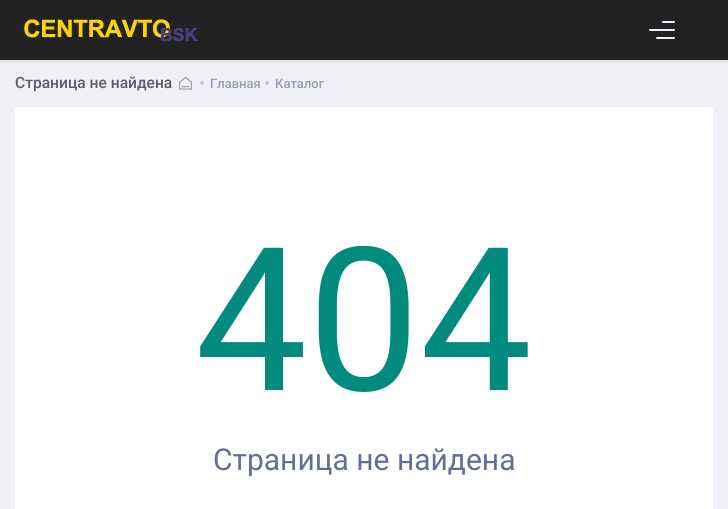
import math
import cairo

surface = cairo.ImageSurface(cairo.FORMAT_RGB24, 728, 509)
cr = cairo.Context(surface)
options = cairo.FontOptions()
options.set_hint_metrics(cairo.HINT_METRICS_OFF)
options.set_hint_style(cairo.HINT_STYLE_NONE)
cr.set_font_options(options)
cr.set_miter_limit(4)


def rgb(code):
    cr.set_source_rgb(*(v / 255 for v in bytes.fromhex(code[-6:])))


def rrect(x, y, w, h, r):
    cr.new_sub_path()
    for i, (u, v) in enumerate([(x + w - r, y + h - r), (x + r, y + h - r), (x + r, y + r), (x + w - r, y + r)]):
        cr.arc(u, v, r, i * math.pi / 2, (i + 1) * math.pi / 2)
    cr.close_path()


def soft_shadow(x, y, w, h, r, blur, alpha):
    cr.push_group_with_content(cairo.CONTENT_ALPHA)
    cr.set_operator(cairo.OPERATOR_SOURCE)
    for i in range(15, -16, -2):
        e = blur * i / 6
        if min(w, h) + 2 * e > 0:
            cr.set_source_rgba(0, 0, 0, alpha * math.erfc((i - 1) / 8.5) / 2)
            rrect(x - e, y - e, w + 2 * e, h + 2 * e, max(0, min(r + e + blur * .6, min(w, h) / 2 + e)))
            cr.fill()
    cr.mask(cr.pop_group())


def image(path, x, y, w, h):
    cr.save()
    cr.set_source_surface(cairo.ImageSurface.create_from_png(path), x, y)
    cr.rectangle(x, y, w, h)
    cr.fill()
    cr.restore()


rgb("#efeff5")
cr.paint()
rgb("#000000")
soft_shadow(3, 4, 722, 54, 0, 4.5, 0.1)
soft_shadow(3, 14, 722, 44, 0, 4.5, 0.1)
rgb("#222222")
cr.rectangle(0, 0, 728, 60)
cr.fill()
image("img/1.png", 24, 19, 174, 23)
rgb("#f2f5ff")
rrect(649, 29, 26, 2, 1)
cr.fill()
rrect(662, 21, 13, 2, 1)
cr.fill()
rrect(656, 37, 19, 2, 1)
cr.fill()
image("img/2.png", 179, 76, 13, 14)
rgb("#c2c6d6")
cr.arc(202, 83, 2, 0, 2 * math.pi)
cr.fill()
cr.arc(267, 83, 2, 0, 2 * math.pi)
cr.fill()
rgb("#ffffff")
rrect(15, 107, 698, 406, 4)
cr.fill()
cr.select_font_face("Roboto Medium")
cr.set_font_size(15.6)
rgb("#595d6e")
cr.move_to(15, 88)
cr.show_text("Страница не найдена")
cr.set_font_size(13)
rgb("#959cb6")
cr.move_to(210, 88)
cr.show_text("Главная")
cr.move_to(275, 88)
cr.show_text("Каталог")
cr.select_font_face("Roboto")
cr.set_font_size(200)
rgb("#008b7e")
cr.move_to(195, 390)
cr.show_text("404")
cr.set_font_size(30)
rgb("#646c9a")
cr.move_to(213, 470)
cr.show_text("Страница не найдена")
surface.write_to_png("page.png")
